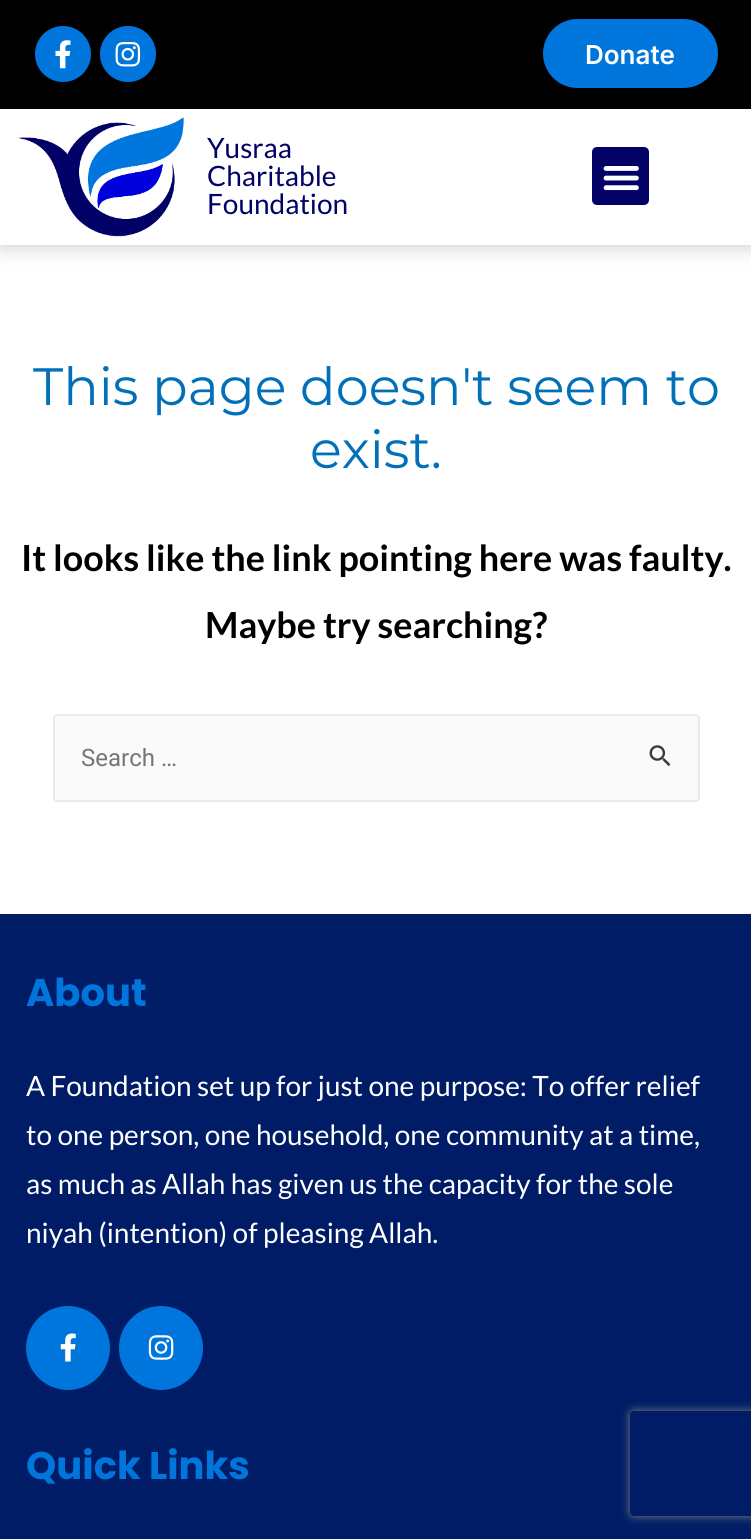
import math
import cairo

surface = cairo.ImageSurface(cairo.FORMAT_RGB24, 751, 1539)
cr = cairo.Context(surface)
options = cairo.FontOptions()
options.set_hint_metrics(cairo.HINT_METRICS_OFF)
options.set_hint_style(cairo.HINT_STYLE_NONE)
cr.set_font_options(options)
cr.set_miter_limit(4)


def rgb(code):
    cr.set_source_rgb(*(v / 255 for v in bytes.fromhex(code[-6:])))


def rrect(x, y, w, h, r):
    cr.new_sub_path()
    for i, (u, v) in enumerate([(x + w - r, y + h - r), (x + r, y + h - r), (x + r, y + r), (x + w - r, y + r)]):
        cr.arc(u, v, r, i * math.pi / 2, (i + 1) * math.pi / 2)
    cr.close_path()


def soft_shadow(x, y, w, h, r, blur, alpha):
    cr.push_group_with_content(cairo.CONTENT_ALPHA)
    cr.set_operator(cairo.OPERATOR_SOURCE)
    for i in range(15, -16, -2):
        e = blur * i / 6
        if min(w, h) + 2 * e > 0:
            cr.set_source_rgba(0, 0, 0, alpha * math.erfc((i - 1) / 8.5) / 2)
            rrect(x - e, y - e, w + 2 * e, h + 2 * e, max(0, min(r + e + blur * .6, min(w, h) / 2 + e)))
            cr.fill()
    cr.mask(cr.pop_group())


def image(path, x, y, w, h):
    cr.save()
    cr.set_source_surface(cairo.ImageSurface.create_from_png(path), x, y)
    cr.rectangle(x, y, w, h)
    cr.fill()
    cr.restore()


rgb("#ffffff")
cr.paint()
rgb("#000000")
cr.rectangle(0, 0, 751, 109)
cr.fill()
rgb("#0076dc")
cr.arc(63, 54, 28, 0, 2 * math.pi)
cr.fill()
image("img/1.png", 55, 40, 16, 29)
cr.arc(128, 54, 28, 0, 2 * math.pi)
cr.fill()
image("img/2.png", 115, 42, 26, 25)
rrect(543, 19, 175, 69, 34.5)
cr.fill()
cr.save()
cr.set_fill_rule(cairo.FILL_RULE_EVEN_ODD)
cr.new_path()
cr.move_to(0, 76)
cr.line_to(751, 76)
cr.line_to(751, 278)
cr.line_to(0, 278)
cr.close_path()
cr.move_to(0, 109)
cr.line_to(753, 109)
cr.line_to(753, 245)
cr.line_to(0, 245)
cr.close_path()
cr.clip()
rgb("#000000")
soft_shadow(0, 109, 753, 136, 0, 10.5, 0.23)
cr.restore()
image("img/3.png", 17, 117, 167, 120)
rgb("#010166")
rrect(592, 147, 57, 58, 5)
cr.fill()
image("img/4.png", 603, 166, 36, 25)
rgb("#fafafa")
rrect(54, 715, 645, 86, 3)
cr.fill_preserve()
rgb("#eaeaea")
cr.stroke()
image("img/5.png", 649, 745, 21, 22)
rgb("#001c66")
cr.rectangle(0, 914, 751, 625)
cr.fill()
rgb("#0076dc")
cr.arc(68, 1348, 42, 0, 2 * math.pi)
cr.fill()
image("img/6.png", 60, 1333, 16, 29)
cr.arc(161, 1348, 42, 0, 2 * math.pi)
cr.fill()
image("img/7.png", 148, 1335, 26, 25)
cr.save()
cr.set_fill_rule(cairo.FILL_RULE_EVEN_ODD)
cr.new_path()
cr.move_to(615, 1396)
cr.line_to(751, 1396)
cr.line_to(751, 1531)
cr.line_to(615, 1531)
cr.close_path()
cr.move_to(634, 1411)
cr.line_to(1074, 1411)
cr.curve_to(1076, 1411, 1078, 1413, 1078, 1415)
cr.line_to(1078, 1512)
cr.curve_to(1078, 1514, 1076, 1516, 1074, 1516)
cr.line_to(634, 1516)
cr.curve_to(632, 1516, 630, 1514, 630, 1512)
cr.line_to(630, 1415)
cr.curve_to(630, 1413, 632, 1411, 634, 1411)
cr.close_path()
cr.clip()
rgb("#808080")
soft_shadow(630, 1411, 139, 105, 4, 4.5, 1)
cr.restore()
cr.select_font_face("Inter SemiBold")
cr.set_font_size(26)
rgb("#ffffff")
cr.move_to(585, 64)
cr.show_text("Donate")
cr.select_font_face("Lato")
cr.set_font_size(28)
rgb("#010166")
for x, y, s in [
    (207, 158, "Yusraa"),
    (207, 186, "Charitable"),
    (207, 214, "Foundation"),
]:
    cr.move_to(x, y)
    cr.show_text(s)
cr.select_font_face("Montserrat")
cr.set_font_size(52.5)
rgb("#0170b9")
cr.move_to(33, 405)
cr.show_text("This page doesn't seem to")
cr.move_to(310, 468)
cr.show_text("exist.")
cr.select_font_face("Lato", cairo.FONT_SLANT_NORMAL, cairo.FONT_WEIGHT_BOLD)
cr.set_font_size(35.9)
rgb("#000000")
cr.move_to(21, 571)
cr.show_text("It looks like the link pointing here was faulty.")
cr.move_to(205, 638)
cr.show_text("Maybe try searching?")
cr.select_font_face("Roboto")
cr.set_font_size(24)
rgb("#757575")
cr.move_to(81, 766)
cr.show_text("Search …")
cr.select_font_face("Poppins", cairo.FONT_SLANT_NORMAL, cairo.FONT_WEIGHT_BOLD)
cr.set_font_size(38.5)
rgb("#0076dc")
cr.move_to(26, 1006)
cr.show_text("About")
cr.select_font_face("Lato")
cr.set_font_size(28)
rgb("#ffffff")
for x, y, s in [
    (26, 1096, "A Foundation set up for just one purpose: To offer relief"),
    (26, 1145, "to one person, one household, one community at a time,"),
    (26, 1194, "as much as Allah has given us the capacity for the sole"),
    (26, 1243, "niyah (intention) of pleasing Allah."),
]:
    cr.move_to(x, y)
    cr.show_text(s)
cr.select_font_face("Poppins", cairo.FONT_SLANT_NORMAL, cairo.FONT_WEIGHT_BOLD)
cr.set_font_size(38.5)
rgb("#0076dc")
cr.move_to(26, 1479)
cr.show_text("Quick Links")
surface.write_to_png("page.png")
